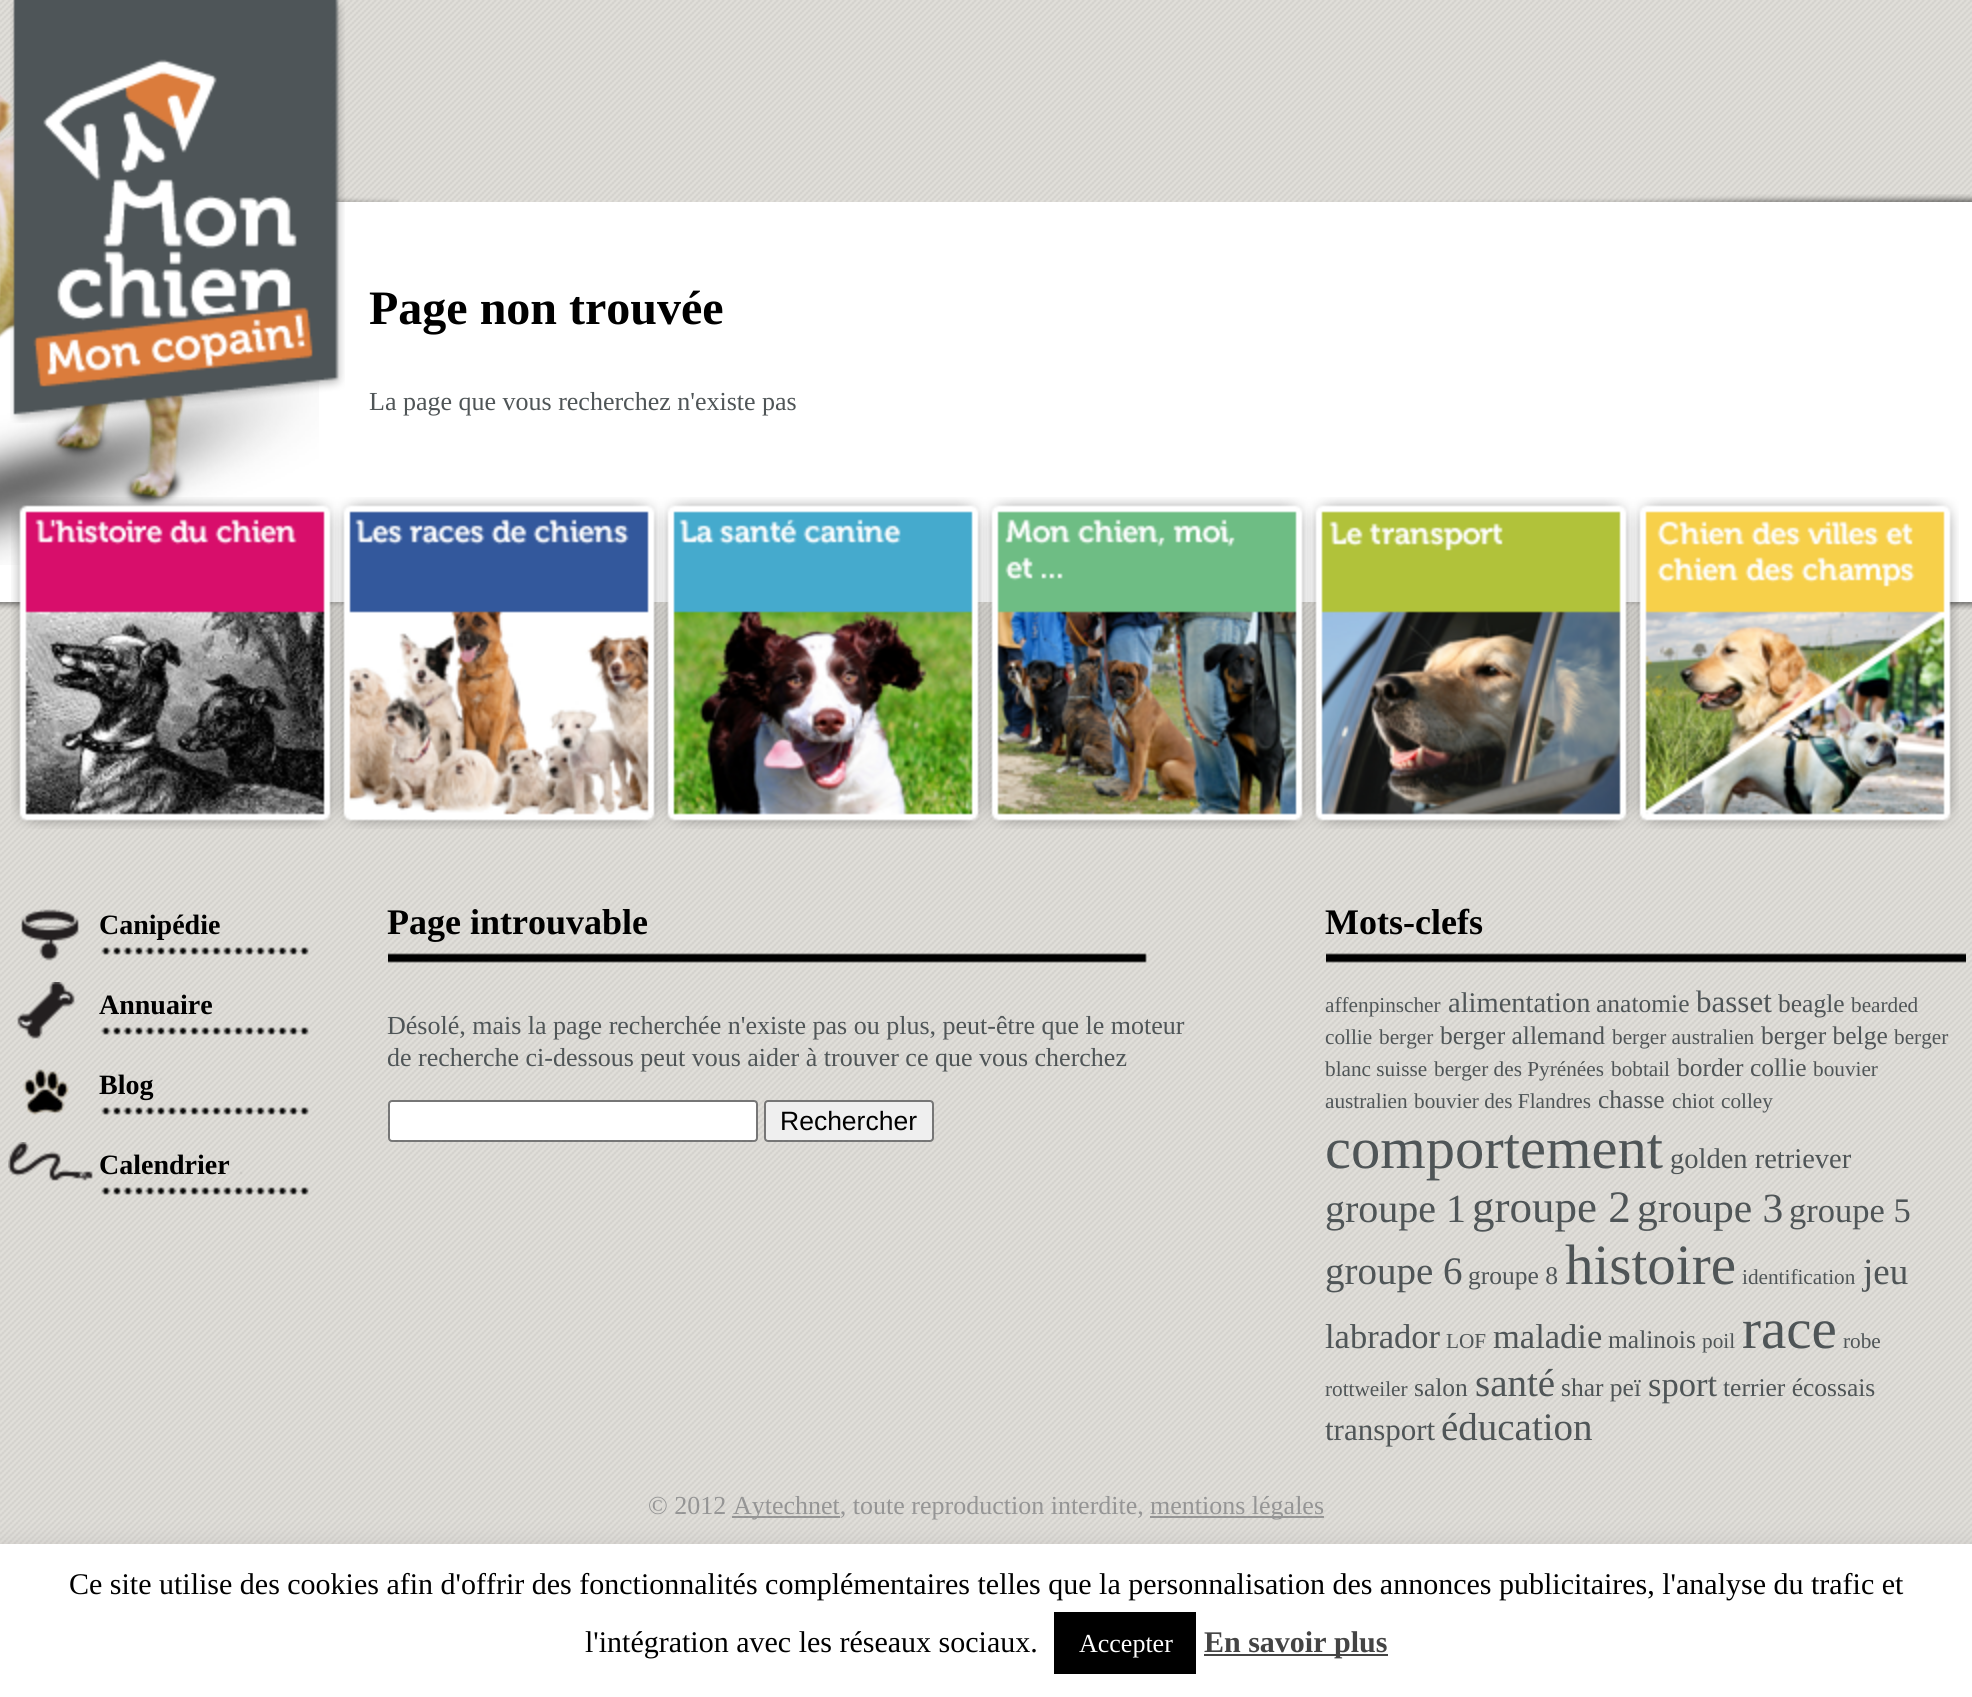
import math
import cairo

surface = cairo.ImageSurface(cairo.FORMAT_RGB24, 1972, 1697)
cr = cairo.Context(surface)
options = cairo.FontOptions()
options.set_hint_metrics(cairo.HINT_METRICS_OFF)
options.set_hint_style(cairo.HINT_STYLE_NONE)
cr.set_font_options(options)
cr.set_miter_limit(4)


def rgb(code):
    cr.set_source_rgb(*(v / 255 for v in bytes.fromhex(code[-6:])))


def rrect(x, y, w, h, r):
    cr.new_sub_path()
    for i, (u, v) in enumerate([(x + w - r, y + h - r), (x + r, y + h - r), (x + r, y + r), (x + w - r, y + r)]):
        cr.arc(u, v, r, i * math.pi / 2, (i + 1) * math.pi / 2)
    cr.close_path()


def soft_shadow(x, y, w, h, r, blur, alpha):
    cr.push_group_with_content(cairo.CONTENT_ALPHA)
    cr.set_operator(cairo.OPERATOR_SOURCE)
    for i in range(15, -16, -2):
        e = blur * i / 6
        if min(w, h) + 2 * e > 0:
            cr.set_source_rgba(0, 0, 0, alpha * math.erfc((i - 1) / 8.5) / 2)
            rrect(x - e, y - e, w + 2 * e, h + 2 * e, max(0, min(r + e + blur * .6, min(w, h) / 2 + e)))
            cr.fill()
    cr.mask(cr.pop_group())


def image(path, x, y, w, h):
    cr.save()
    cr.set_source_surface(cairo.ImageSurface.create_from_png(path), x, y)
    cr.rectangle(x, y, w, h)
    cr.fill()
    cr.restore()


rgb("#ffffff")
cr.paint()
image("img/1.png", 0, 0, 1972, 1544)
image("img/3.png", 335, 194, 1637, 8)
rgb("#ffffff")
cr.rectangle(0, 202, 1972, 400)
cr.fill()
image("img/4.png", 0, 91, 319, 474)
image("img/2.png", 10, 0, 335, 423)
image("img/5.png", 11, 497, 328, 105)
image("img/6.png", 335, 497, 328, 105)
image("img/7.png", 659, 497, 328, 105)
image("img/8.png", 983, 497, 328, 105)
image("img/9.png", 1307, 497, 328, 105)
image("img/10.png", 1631, 497, 328, 105)
image("img/11.png", 0, 602, 1972, 8)
image("img/12.png", 11, 602, 328, 227)
image("img/13.png", 335, 602, 328, 227)
image("img/14.png", 659, 602, 328, 227)
image("img/15.png", 983, 602, 328, 227)
image("img/16.png", 1307, 602, 328, 227)
image("img/17.png", 1631, 602, 328, 227)
image("img/18.png", 21, 909, 288, 52)
image("img/19.png", 17, 982, 292, 57)
image("img/20.png", 23, 1069, 286, 46)
image("img/21.png", 8, 1142, 301, 53)
image("img/22.png", 388, 953, 759, 10)
rrect(389, 1101, 368, 40, 3)
cr.fill_preserve()
rgb("#767676")
cr.stroke()
rgb("#efefef")
rrect(765, 1101, 168, 40, 3)
cr.fill_preserve()
rgb("#767676")
cr.stroke()
image("img/23.png", 1326, 953, 640, 10)
rgb("#959595")
cr.rectangle(732, 1516, 108, 2)
cr.fill()
cr.rectangle(1150, 1516, 174, 2)
cr.fill()
rgb("#acabab")
soft_shadow(0, 1542, 1972, 154, 0, 10, 0.3)
for x, y, w, h, color in [
    (0, 1544, 1972, 153, "#ffffff"),
    (1054, 1612, 142, 62, "#000000"),
    (1204, 1654, 184, 2, "#444444"),
]:
    rgb(color)
    cr.rectangle(x, y, w, h)
    cr.fill()
cr.select_font_face("Liberation Serif", cairo.FONT_SLANT_NORMAL, cairo.FONT_WEIGHT_BOLD)
cr.set_font_size(48)
rgb("#000000")
cr.move_to(369, 324)
cr.show_text("Page non trouvée")
cr.select_font_face("Liberation Serif")
cr.set_font_size(26)
rgb("#4f5557")
cr.move_to(369, 410)
cr.show_text("La page que vous recherchez n'existe pas")
cr.select_font_face("Liberation Serif", cairo.FONT_SLANT_NORMAL, cairo.FONT_WEIGHT_BOLD)
cr.set_font_size(28)
rgb("#000000")
for x, y, s in [
    (99, 934, "Canipédie"),
    (99, 1014, "Annuaire"),
    (99, 1094, "Blog"),
    (99, 1174, "Calendrier"),
]:
    cr.move_to(x, y)
    cr.show_text(s)
cr.set_font_size(36)
cr.move_to(387, 934)
cr.show_text("Page introuvable")
cr.select_font_face("Liberation Serif")
cr.set_font_size(26)
rgb("#4f5557")
cr.move_to(387, 1034)
cr.show_text("Désolé, mais la page recherchée n'existe pas ou plus, peut-être que le moteur")
cr.move_to(387, 1066)
cr.show_text("de recherche ci-dessous peut vous aider à trouver ce que vous cherchez")
cr.select_font_face("Liberation Sans")
cr.set_font_size(26.5)
rgb("#000000")
cr.move_to(780, 1130)
cr.show_text("Rechercher")
cr.select_font_face("Liberation Serif", cairo.FONT_SLANT_NORMAL, cairo.FONT_WEIGHT_BOLD)
cr.set_font_size(36)
cr.move_to(1325, 934)
cr.show_text("Mots-clefs")
cr.select_font_face("Liberation Serif")
cr.set_font_size(21.25)
rgb("#4f5557")
cr.move_to(1325, 1012)
cr.show_text("affenpinscher")
cr.set_font_size(28.5)
cr.move_to(1448, 1012)
cr.show_text("alimentation")
cr.set_font_size(25.5)
cr.move_to(1596, 1012)
cr.show_text("anatomie")
cr.set_font_size(31)
cr.move_to(1696, 1012)
cr.show_text("basset")
cr.set_font_size(25.5)
cr.move_to(1778, 1012)
cr.show_text("beagle")
cr.set_font_size(21.25)
for x, y, s in [
    (1851, 1012, "bearded"),
    (1325, 1044, "collie"),
    (1379, 1044, "berger"),
]:
    cr.move_to(x, y)
    cr.show_text(s)
cr.set_font_size(25.5)
cr.move_to(1440, 1044)
cr.show_text("berger allemand")
cr.set_font_size(21.25)
cr.move_to(1612, 1044)
cr.show_text("berger australien")
cr.set_font_size(25.5)
cr.move_to(1761, 1044)
cr.show_text("berger belge")
cr.set_font_size(21.25)
for x, y, s in [
    (1894, 1044, "berger"),
    (1325, 1076, "blanc suisse"),
    (1434, 1076, "berger des Pyrénées"),
    (1611, 1076, "bobtail"),
]:
    cr.move_to(x, y)
    cr.show_text(s)
cr.set_font_size(25.5)
cr.move_to(1677, 1076)
cr.show_text("border collie")
cr.set_font_size(21.25)
for x, y, s in [
    (1813, 1076, "bouvier"),
    (1325, 1108, "australien"),
    (1414, 1108, "bouvier des Flandres"),
]:
    cr.move_to(x, y)
    cr.show_text(s)
cr.set_font_size(25.5)
cr.move_to(1598, 1108)
cr.show_text("chasse")
cr.set_font_size(21.25)
cr.move_to(1672, 1108)
cr.show_text("chiot")
cr.move_to(1721, 1108)
cr.show_text("colley")
cr.set_font_size(58.5)
cr.move_to(1325, 1168)
cr.show_text("comportement")
cr.set_font_size(28.5)
cr.move_to(1670, 1168)
cr.show_text("golden retriever")
cr.set_font_size(40)
cr.move_to(1325, 1222)
cr.show_text("groupe 1")
cr.set_font_size(45)
cr.move_to(1472, 1222)
cr.show_text("groupe 2")
cr.set_font_size(41.5)
cr.move_to(1637, 1222)
cr.show_text("groupe 3")
cr.set_font_size(34.5)
cr.move_to(1789, 1222)
cr.show_text("groupe 5")
cr.set_font_size(39)
cr.move_to(1325, 1284)
cr.show_text("groupe 6")
cr.set_font_size(25.5)
cr.move_to(1468, 1284)
cr.show_text("groupe 8")
cr.set_font_size(57)
cr.move_to(1565, 1284)
cr.show_text("histoire")
cr.set_font_size(21.25)
cr.move_to(1742, 1284)
cr.show_text("identification")
cr.set_font_size(37)
cr.move_to(1863, 1284)
cr.show_text("jeu")
cr.set_font_size(34.5)
cr.move_to(1325, 1348)
cr.show_text("labrador")
cr.set_font_size(21.25)
cr.move_to(1446, 1348)
cr.show_text("LOF")
cr.set_font_size(34.5)
cr.move_to(1493, 1348)
cr.show_text("maladie")
cr.set_font_size(25.5)
cr.move_to(1608, 1348)
cr.show_text("malinois")
cr.set_font_size(21.25)
cr.move_to(1702, 1348)
cr.show_text("poil")
cr.set_font_size(57)
cr.move_to(1742, 1348)
cr.show_text("race")
cr.set_font_size(21.25)
cr.move_to(1843, 1348)
cr.show_text("robe")
cr.move_to(1325, 1396)
cr.show_text("rottweiler")
cr.set_font_size(25.5)
cr.move_to(1414, 1396)
cr.show_text("salon")
cr.set_font_size(39)
cr.move_to(1475, 1396)
cr.show_text("santé")
cr.set_font_size(25.5)
cr.move_to(1561, 1396)
cr.show_text("shar peï")
cr.set_font_size(34.5)
cr.move_to(1648, 1396)
cr.show_text("sport")
cr.set_font_size(25.5)
cr.move_to(1723, 1396)
cr.show_text("terrier écossais")
cr.set_font_size(31)
cr.move_to(1325, 1440)
cr.show_text("transport")
cr.set_font_size(39)
cr.move_to(1441, 1440)
cr.show_text("éducation")
cr.set_font_size(26)
rgb("#959595")
for x, y, s in [
    (648, 1514, "© 2012"),
    (733, 1514, "Aytechnet, toute reproduction interdite,"),
    (1150, 1514, "mentions légales"),
]:
    cr.move_to(x, y)
    cr.show_text(s)
cr.set_font_size(30)
rgb("#000000")
cr.move_to(69, 1594)
cr.show_text("Ce site utilise des cookies afin d'offrir des fonctionnalités complémentaires telles que la personnalisation des annonces publicitaires, l'analyse du trafic et")
cr.move_to(585, 1652)
cr.show_text("l'intégration avec les réseaux sociaux.")
cr.set_font_size(26)
rgb("#ffffff")
cr.move_to(1079, 1652)
cr.show_text("Accepter")
cr.select_font_face("Liberation Serif", cairo.FONT_SLANT_NORMAL, cairo.FONT_WEIGHT_BOLD)
cr.set_font_size(30)
rgb("#444444")
cr.move_to(1204, 1652)
cr.show_text("En savoir plus")
surface.write_to_png("page.png")
